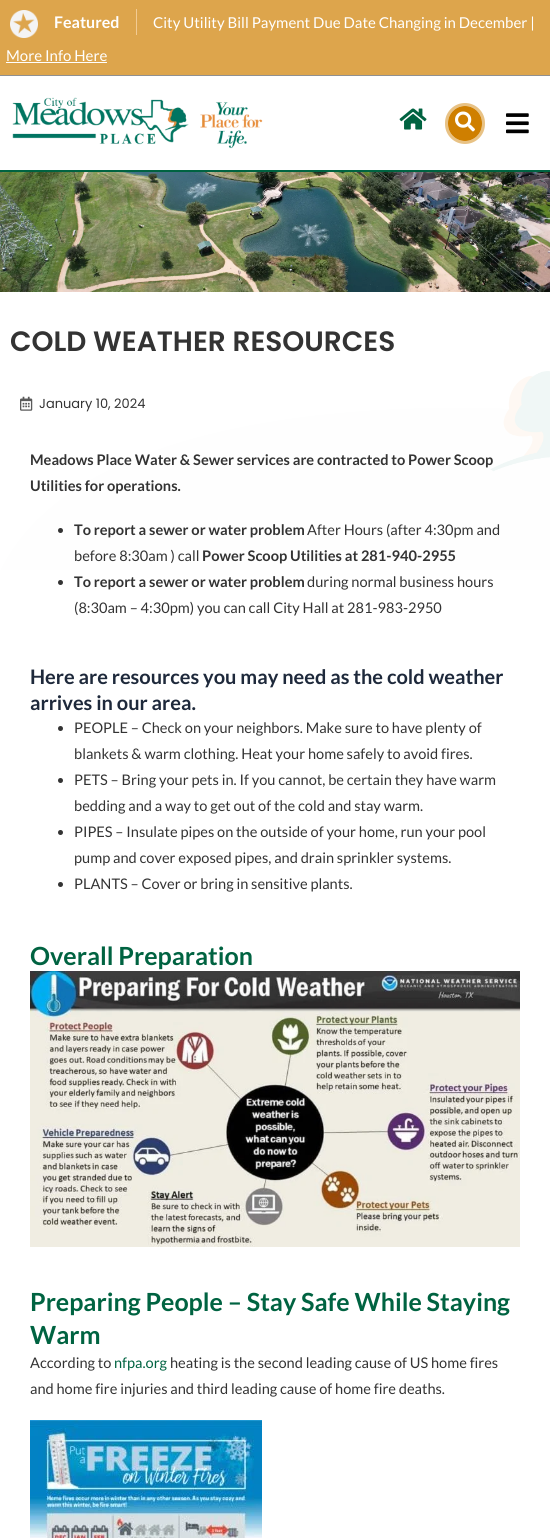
import math
import cairo

surface = cairo.ImageSurface(cairo.FORMAT_RGB24, 550, 1538)
cr = cairo.Context(surface)
options = cairo.FontOptions()
options.set_hint_metrics(cairo.HINT_METRICS_OFF)
options.set_hint_style(cairo.HINT_STYLE_NONE)
cr.set_font_options(options)
cr.set_miter_limit(4)


def rgb(code):
    cr.set_source_rgb(*(v / 255 for v in bytes.fromhex(code[-6:])))


def rrect(x, y, w, h, r):
    cr.new_sub_path()
    for i, (u, v) in enumerate([(x + w - r, y + h - r), (x + r, y + h - r), (x + r, y + r), (x + w - r, y + r)]):
        cr.arc(u, v, r, i * math.pi / 2, (i + 1) * math.pi / 2)
    cr.close_path()


def image(path, x, y, w, h):
    cr.save()
    cr.set_source_surface(cairo.ImageSurface.create_from_png(path), x, y)
    cr.rectangle(x, y, w, h)
    cr.fill()
    cr.restore()


rgb("#ffffff")
cr.paint()
rgb("#dda54c")
cr.rectangle(0, 0, 550, 75)
cr.fill()
rgb("#909090")
cr.rectangle(0, 75, 550, 1)
cr.fill()
image("img/1.png", 10, 10, 28, 28)
for x, y, w, h, color in [
    (136, 9, 1, 26, "#f2cb93"),
    (6, 62, 101, 1, "#ffffff"),
    (0, 170, 550, 2, "#006341"),
]:
    rgb(color)
    cr.rectangle(x, y, w, h)
    cr.fill()
image("img/2.png", 12, 97, 251, 52)
image("img/3.png", 399, 108, 28, 22)
rrect(446.5, 104.5, 37, 38, 18.5)
rgb("#e8c285")
cr.set_line_width(3)
cr.stroke()
rgb("#cf7f00")
rrect(448, 106, 34, 35, 17)
cr.fill()
image("img/4.png", 455, 111, 20, 21)
image("img/5.png", 506, 113, 23, 21)
image("img/6.png", 0, 172, 550, 120)
image("img/7.png", 0, 371, 550, 199)
image("img/8.png", 20, 396, 13, 15)
rgb("#333333")
cr.arc(60.5, 530.5, 2.5, 0, 2 * math.pi)
cr.fill()
cr.arc(60.5, 582.5, 2.5, 0, 2 * math.pi)
cr.fill()
cr.arc(60.5, 728.5, 2.5, 0, 2 * math.pi)
cr.fill()
cr.arc(60.5, 780.5, 2.5, 0, 2 * math.pi)
cr.fill()
cr.arc(60.5, 832.5, 2.5, 0, 2 * math.pi)
cr.fill()
cr.arc(60.5, 884.5, 2.5, 0, 2 * math.pi)
cr.fill()
image("img/9.png", 30, 971, 490, 276)
image("img/10.png", 30, 1420, 232, 118)
cr.select_font_face("Lato", cairo.FONT_SLANT_NORMAL, cairo.FONT_WEIGHT_BOLD)
cr.set_font_size(16)
rgb("#ffffff")
cr.move_to(54, 28)
cr.show_text("Featured")
cr.select_font_face("Lato")
cr.set_font_size(15)
cr.move_to(153, 28)
cr.show_text("City Utility Bill Payment Due Date Changing in December |")
cr.move_to(6, 61)
cr.show_text("More Info Here")
cr.select_font_face("Poppins SemiBold")
cr.set_font_size(28)
rgb("#333333")
cr.move_to(10, 351)
cr.show_text("COLD WEATHER RESOURCES")
cr.select_font_face("Poppins")
cr.set_font_size(13)
cr.move_to(39, 408)
cr.show_text("January 10, 2024")
cr.select_font_face("Lato", cairo.FONT_SLANT_NORMAL, cairo.FONT_WEIGHT_BOLD)
cr.set_font_size(14.6)
for x, y, s in [
    (30, 465, "Meadows Place Water & Sewer services are contracted to Power Scoop"),
    (30, 491, "Utilities for operations."),
    (74, 535, "To report a sewer or water problem"),
]:
    cr.move_to(x, y)
    cr.show_text(s)
cr.select_font_face("Lato")
cr.move_to(307, 535)
cr.show_text("After Hours (after 4:30pm and")
cr.move_to(74, 561)
cr.show_text("before 8:30am ) call")
cr.select_font_face("Lato", cairo.FONT_SLANT_NORMAL, cairo.FONT_WEIGHT_BOLD)
cr.move_to(202, 561)
cr.show_text("Power Scoop Utilities at 281-940-2955")
cr.move_to(74, 587)
cr.show_text("To report a sewer or water problem")
cr.select_font_face("Lato")
cr.move_to(307, 587)
cr.show_text("during normal business hours")
cr.move_to(74, 613)
cr.show_text("(8:30am – 4:30pm) you can call City Hall at 281-983-2950")
cr.select_font_face("Lato", cairo.FONT_SLANT_NORMAL, cairo.FONT_WEIGHT_BOLD)
cr.set_font_size(20)
rgb("#1e293b")
cr.move_to(30, 684)
cr.show_text("Here are resources you may need as the cold weather")
cr.move_to(30, 710)
cr.show_text("arrives in our area.")
cr.select_font_face("Lato")
cr.set_font_size(14.6)
rgb("#333333")
for x, y, s in [
    (74, 733, "PEOPLE – Check on your neighbors. Make sure to have plenty of"),
    (74, 759, "blankets & warm clothing. Heat your home safely to avoid fires."),
    (74, 785, "PETS – Bring your pets in. If you cannot, be certain they have warm"),
    (74, 811, "bedding and a way to get out of the cold and stay warm."),
    (74, 837, "PIPES – Insulate pipes on the outside of your home, run your pool"),
    (74, 863, "pump and cover exposed pipes, and drain sprinkler systems."),
    (74, 889, "PLANTS – Cover or bring in sensitive plants."),
]:
    cr.move_to(x, y)
    cr.show_text(s)
cr.select_font_face("Lato", cairo.FONT_SLANT_NORMAL, cairo.FONT_WEIGHT_BOLD)
cr.set_font_size(25)
rgb("#006341")
for x, y, s in [
    (30, 965, "Overall Preparation"),
    (30, 1311, "Preparing People – Stay Safe While Staying"),
    (30, 1344, "Warm"),
]:
    cr.move_to(x, y)
    cr.show_text(s)
cr.select_font_face("Lato")
cr.set_font_size(14.6)
rgb("#333333")
cr.move_to(30, 1368)
cr.show_text("According to")
rgb("#006341")
cr.move_to(114, 1368)
cr.show_text("nfpa.org")
rgb("#333333")
cr.move_to(170, 1368)
cr.show_text("heating is the second leading cause of US home fires")
cr.move_to(30, 1394)
cr.show_text("and home fire injuries and third leading cause of home fire deaths.")
surface.write_to_png("page.png")
